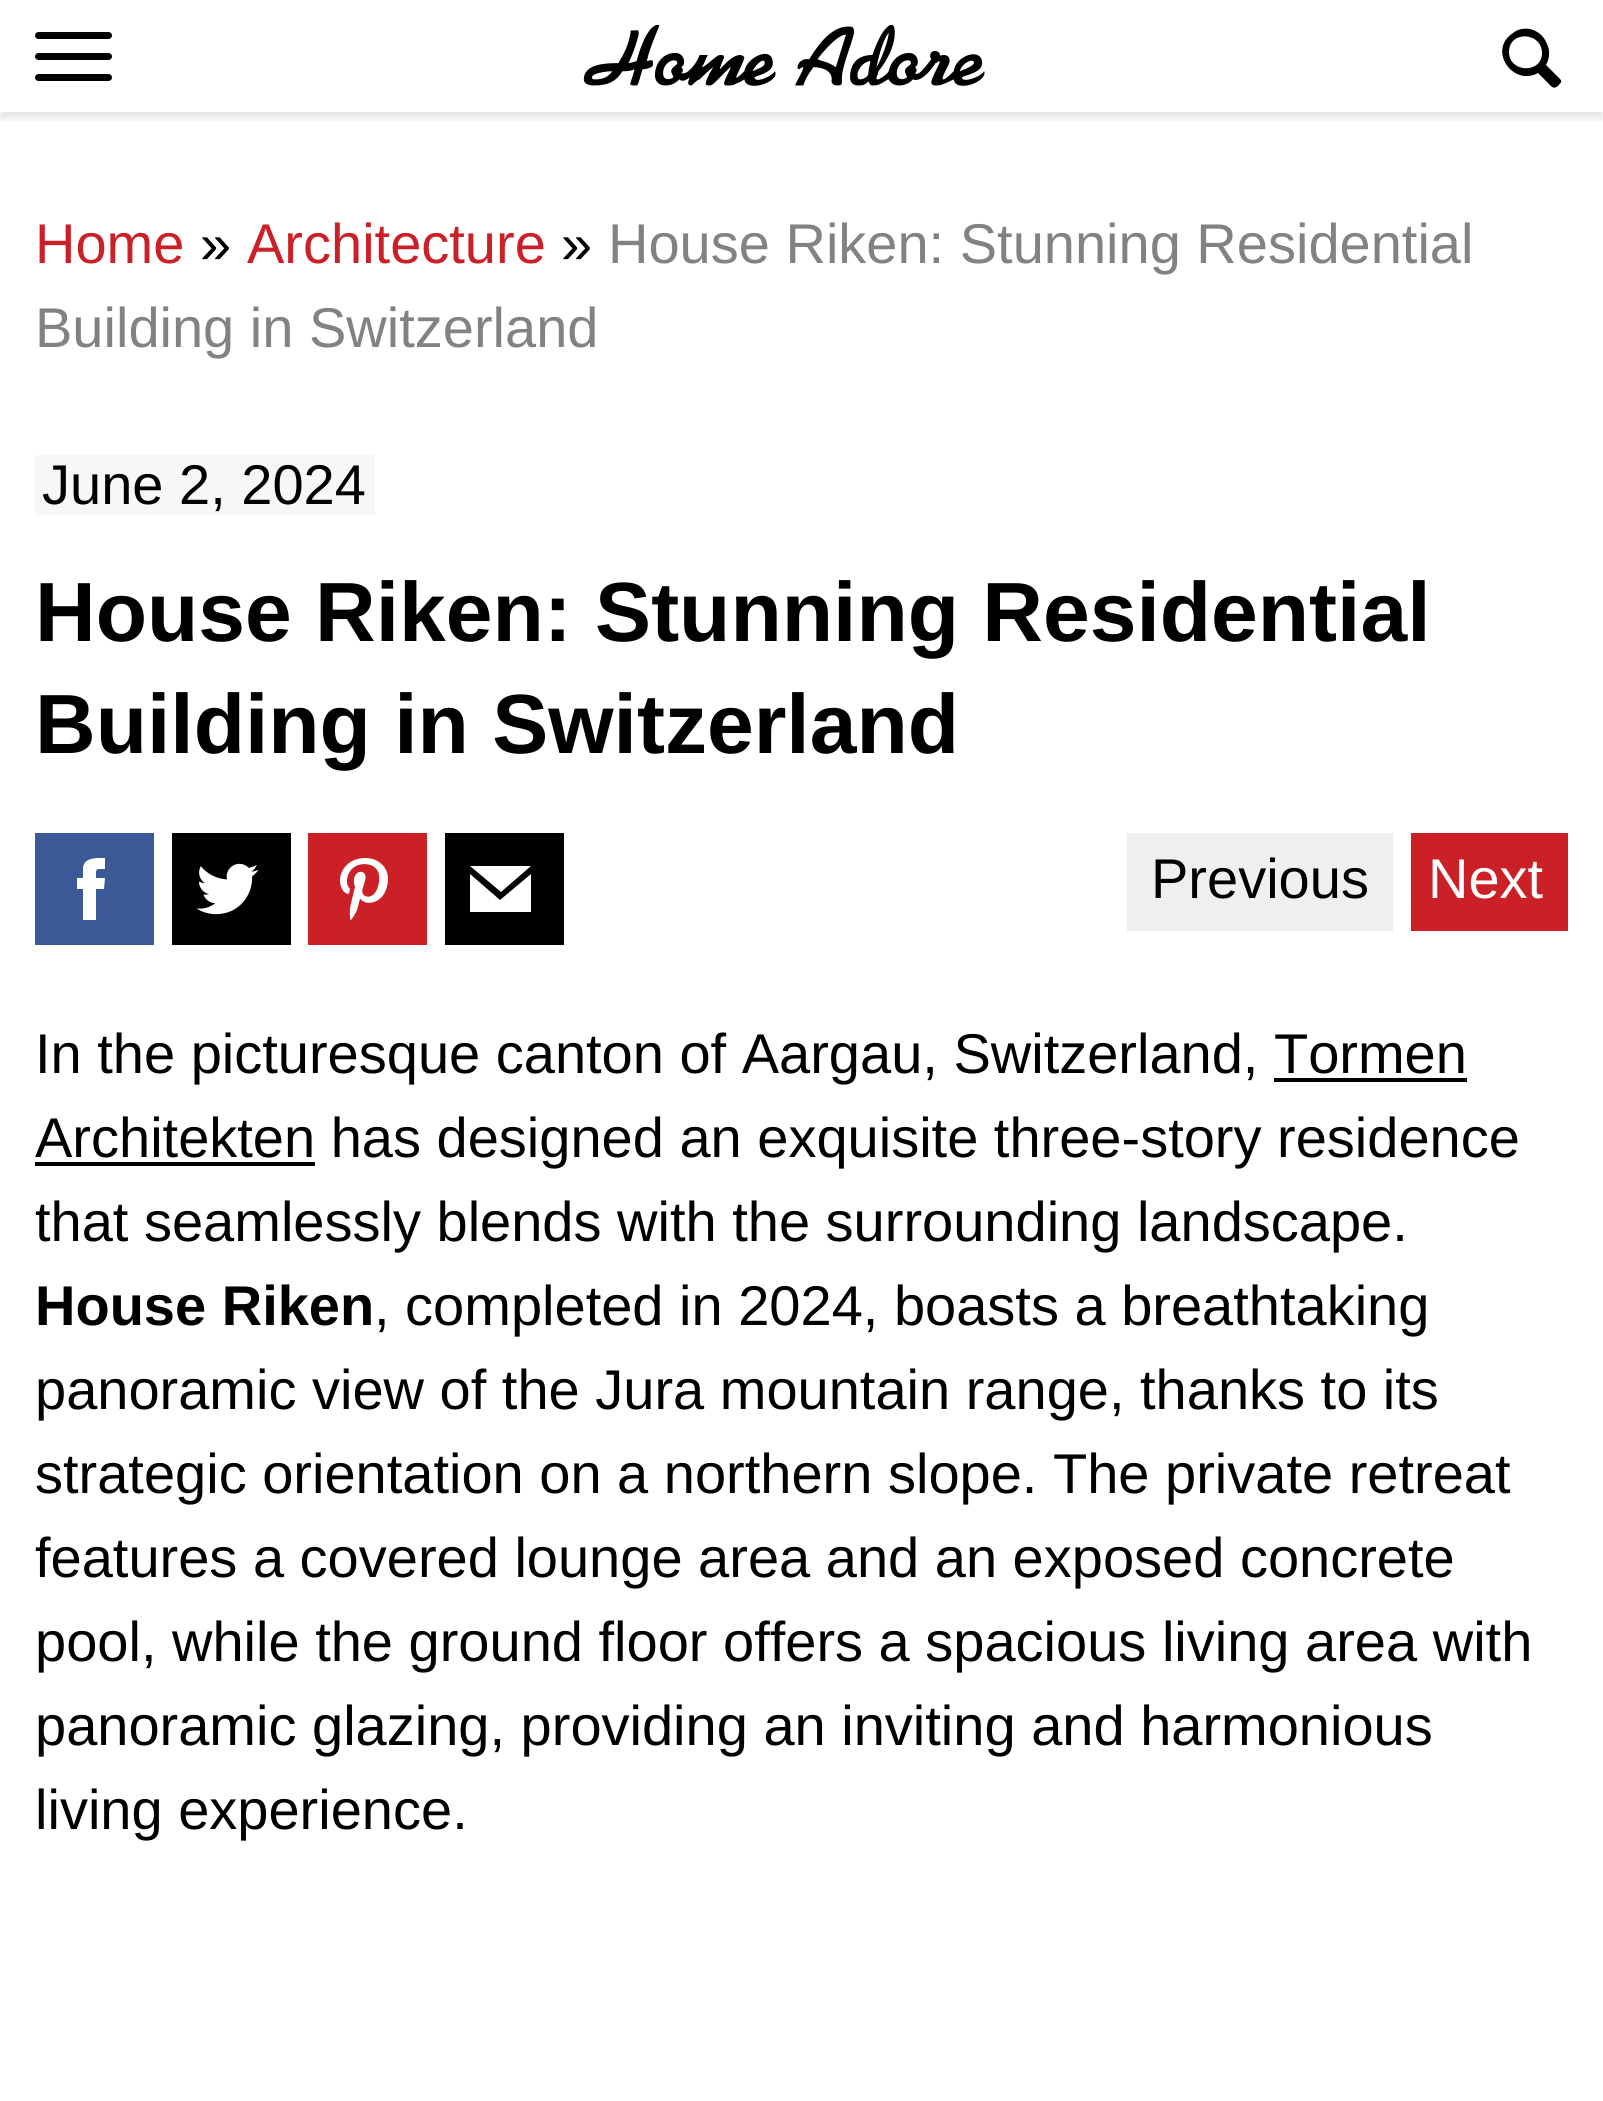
import math
import cairo

surface = cairo.ImageSurface(cairo.FORMAT_RGB24, 1603, 2101)
cr = cairo.Context(surface)
options = cairo.FontOptions()
options.set_hint_metrics(cairo.HINT_METRICS_OFF)
options.set_hint_style(cairo.HINT_STYLE_NONE)
cr.set_font_options(options)
cr.set_miter_limit(4)


def rgb(code):
    cr.set_source_rgb(*(v / 255 for v in bytes.fromhex(code[-6:])))


def rrect(x, y, w, h, r):
    cr.new_sub_path()
    for i, (u, v) in enumerate([(x + w - r, y + h - r), (x + r, y + h - r), (x + r, y + r), (x + w - r, y + r)]):
        cr.arc(u, v, r, i * math.pi / 2, (i + 1) * math.pi / 2)
    cr.close_path()


def soft_shadow(x, y, w, h, r, blur, alpha):
    cr.push_group_with_content(cairo.CONTENT_ALPHA)
    cr.set_operator(cairo.OPERATOR_SOURCE)
    for i in range(15, -16, -2):
        e = blur * i / 6
        if min(w, h) + 2 * e > 0:
            cr.set_source_rgba(0, 0, 0, alpha * math.erfc((i - 1) / 8.5) / 2)
            rrect(x - e, y - e, w + 2 * e, h + 2 * e, max(0, min(r + e + blur * .6, min(w, h) / 2 + e)))
            cr.fill()
    cr.mask(cr.pop_group())


def image(path, x, y, w, h):
    cr.save()
    cr.set_source_surface(cairo.ImageSurface.create_from_png(path), x, y)
    cr.rectangle(x, y, w, h)
    cr.fill()
    cr.restore()


rgb("#ffffff")
cr.paint()
cr.save()
cr.rectangle(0, 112, 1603, 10)
cr.clip()
rgb("#000000")
soft_shadow(0, 7, 1603, 112, 0, 3.5, 0.1)
cr.restore()
rgb("#000000")
rrect(35, 32, 77, 7, 3.5)
cr.fill()
rrect(35, 53, 77, 7, 3.5)
cr.fill()
rrect(35, 74, 77, 7, 3.5)
cr.fill()
image("img/1.png", 583, 25, 402, 61)
cr.new_path()
cr.move_to(1560, 79)
cr.line_to(1546, 65)
cr.curve_to(1550, 58, 1550, 50, 1547, 44)
cr.curve_to(1544, 36, 1538, 31, 1530, 29)
cr.curve_to(1524, 28, 1518, 29, 1513, 33)
cr.curve_to(1487, 50, 1513, 87, 1538, 73)
cr.line_to(1547, 82)
cr.curve_to(1551, 86, 1553, 90, 1558, 86)
cr.curve_to(1560, 83, 1563, 82, 1560, 79)
cr.close_path()
cr.move_to(1509, 52)
cr.curve_to(1509, 30, 1542, 32, 1542, 53)
cr.curve_to(1542, 74, 1509, 73, 1509, 52)
cr.close_path()
cr.fill()
rgb("#f7f7f7")
cr.rectangle(35, 455, 340, 60)
cr.fill()
rgb("#3b5997")
cr.rectangle(35, 833, 119, 112)
cr.fill()
rgb("#ffffff")
cr.new_path()
cr.move_to(83, 878)
cr.line_to(77, 878)
cr.line_to(77, 889)
cr.line_to(83, 889)
cr.line_to(83, 920)
cr.line_to(96, 920)
cr.line_to(96, 889)
cr.line_to(104, 889)
cr.line_to(105, 878)
cr.line_to(96, 878)
cr.curve_to(96, 868, 95, 869, 105, 869)
cr.line_to(105, 858)
cr.curve_to(97, 858, 85, 857, 83, 867)
cr.close_path()
cr.fill()
rgb("#000000")
cr.rectangle(172, 833, 119, 112)
cr.fill()
image("img/2.png", 196, 863, 63, 52)
rgb("#cb2027")
cr.rectangle(308, 833, 119, 112)
cr.fill()
image("img/3.png", 340, 858, 48, 62)
rgb("#000000")
cr.rectangle(445, 833, 119, 112)
cr.fill()
rgb("#ffffff")
cr.new_path()
cr.move_to(501, 892)
cr.line_to(470, 866)
cr.line_to(531, 866)
cr.close_path()
cr.move_to(500, 900)
cr.line_to(470, 874)
cr.line_to(470, 912)
cr.line_to(531, 912)
cr.line_to(531, 874)
cr.close_path()
cr.fill()
for x, y, w, h, color in [
    (1127, 833, 266, 98, "#efefef"),
    (1411, 833, 157, 98, "#cb2027"),
    (1274, 1078, 193, 4, "#000000"),
    (35, 1162, 280, 4, "#000000"),
]:
    rgb(color)
    cr.rectangle(x, y, w, h)
    cr.fill()
cr.select_font_face("Liberation Sans")
cr.set_font_size(56)
rgb("#cb2027")
cr.move_to(35, 263)
cr.show_text("Home")
rgb("#000000")
cr.move_to(200, 263)
cr.show_text("»")
rgb("#cb2027")
cr.move_to(247, 263)
cr.show_text("Architecture")
rgb("#000000")
cr.move_to(561, 263)
cr.show_text("»")
rgb("#828282")
cr.move_to(608, 263)
cr.show_text("House Riken: Stunning Residential")
cr.move_to(35, 347)
cr.show_text("Building in Switzerland")
rgb("#000000")
cr.move_to(42, 504)
cr.show_text("June 2, 2024")
cr.select_font_face("Liberation Sans", cairo.FONT_SLANT_NORMAL, cairo.FONT_WEIGHT_BOLD)
cr.set_font_size(84)
cr.move_to(35, 641)
cr.show_text("House Riken: Stunning Residential")
cr.move_to(35, 753)
cr.show_text("Building in Switzerland")
cr.select_font_face("Liberation Sans")
cr.set_font_size(56)
cr.move_to(1151, 898)
cr.show_text("Previous")
rgb("#ffffff")
cr.move_to(1428, 898)
cr.show_text("Next")
rgb("#000000")
for x, y, s in [
    (35, 1073, "In the picturesque canton of Aargau, Switzerland, Tormen"),
    (35, 1157, "Architekten has designed an exquisite three-story residence"),
    (35, 1241, "that seamlessly blends with the surrounding landscape."),
]:
    cr.move_to(x, y)
    cr.show_text(s)
cr.select_font_face("Liberation Sans", cairo.FONT_SLANT_NORMAL, cairo.FONT_WEIGHT_BOLD)
cr.move_to(35, 1325)
cr.show_text("House Riken")
cr.select_font_face("Liberation Sans")
for x, y, s in [
    (374, 1325, ", completed in 2024, boasts a breathtaking"),
    (35, 1409, "panoramic view of the Jura mountain range, thanks to its"),
    (35, 1493, "strategic orientation on a northern slope. The private retreat"),
    (35, 1577, "features a covered lounge area and an exposed concrete"),
    (35, 1661, "pool, while the ground floor offers a spacious living area with"),
    (35, 1745, "panoramic glazing, providing an inviting and harmonious"),
    (35, 1829, "living experience."),
]:
    cr.move_to(x, y)
    cr.show_text(s)
surface.write_to_png("page.png")
